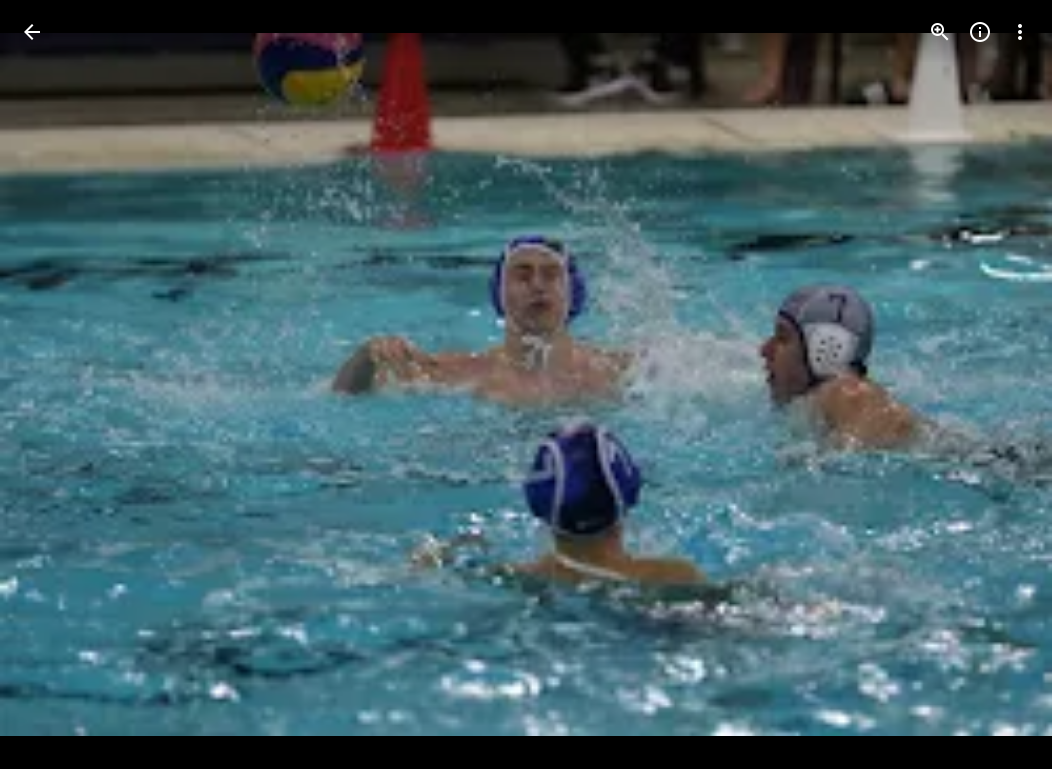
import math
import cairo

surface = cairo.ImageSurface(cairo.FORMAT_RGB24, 1052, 769)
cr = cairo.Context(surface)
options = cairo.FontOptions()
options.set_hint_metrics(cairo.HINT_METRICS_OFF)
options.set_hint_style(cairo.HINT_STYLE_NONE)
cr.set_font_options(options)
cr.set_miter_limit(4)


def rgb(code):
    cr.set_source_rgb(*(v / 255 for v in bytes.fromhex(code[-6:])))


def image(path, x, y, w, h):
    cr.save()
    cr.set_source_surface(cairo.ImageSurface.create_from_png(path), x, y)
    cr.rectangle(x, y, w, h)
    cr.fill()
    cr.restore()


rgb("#000000")
cr.paint()
image("img/5.png", 0, 33, 1052, 703)
gradient = cairo.LinearGradient(526, 0, 526, 64)
gradient.add_color_stop_rgba(0, 0, 0, 0, 0.6)
gradient.add_color_stop_rgba(1, 0, 0, 0, 0)
cr.set_source(gradient)
cr.rectangle(0, 33, 1052, 29)
cr.fill()
image("img/1.png", 24, 24, 16, 16)
image("img/2.png", 931, 23, 18, 18)
image("img/3.png", 970, 22, 20, 20)
image("img/4.png", 1018, 24, 4, 16)
surface.write_to_png("page.png")
